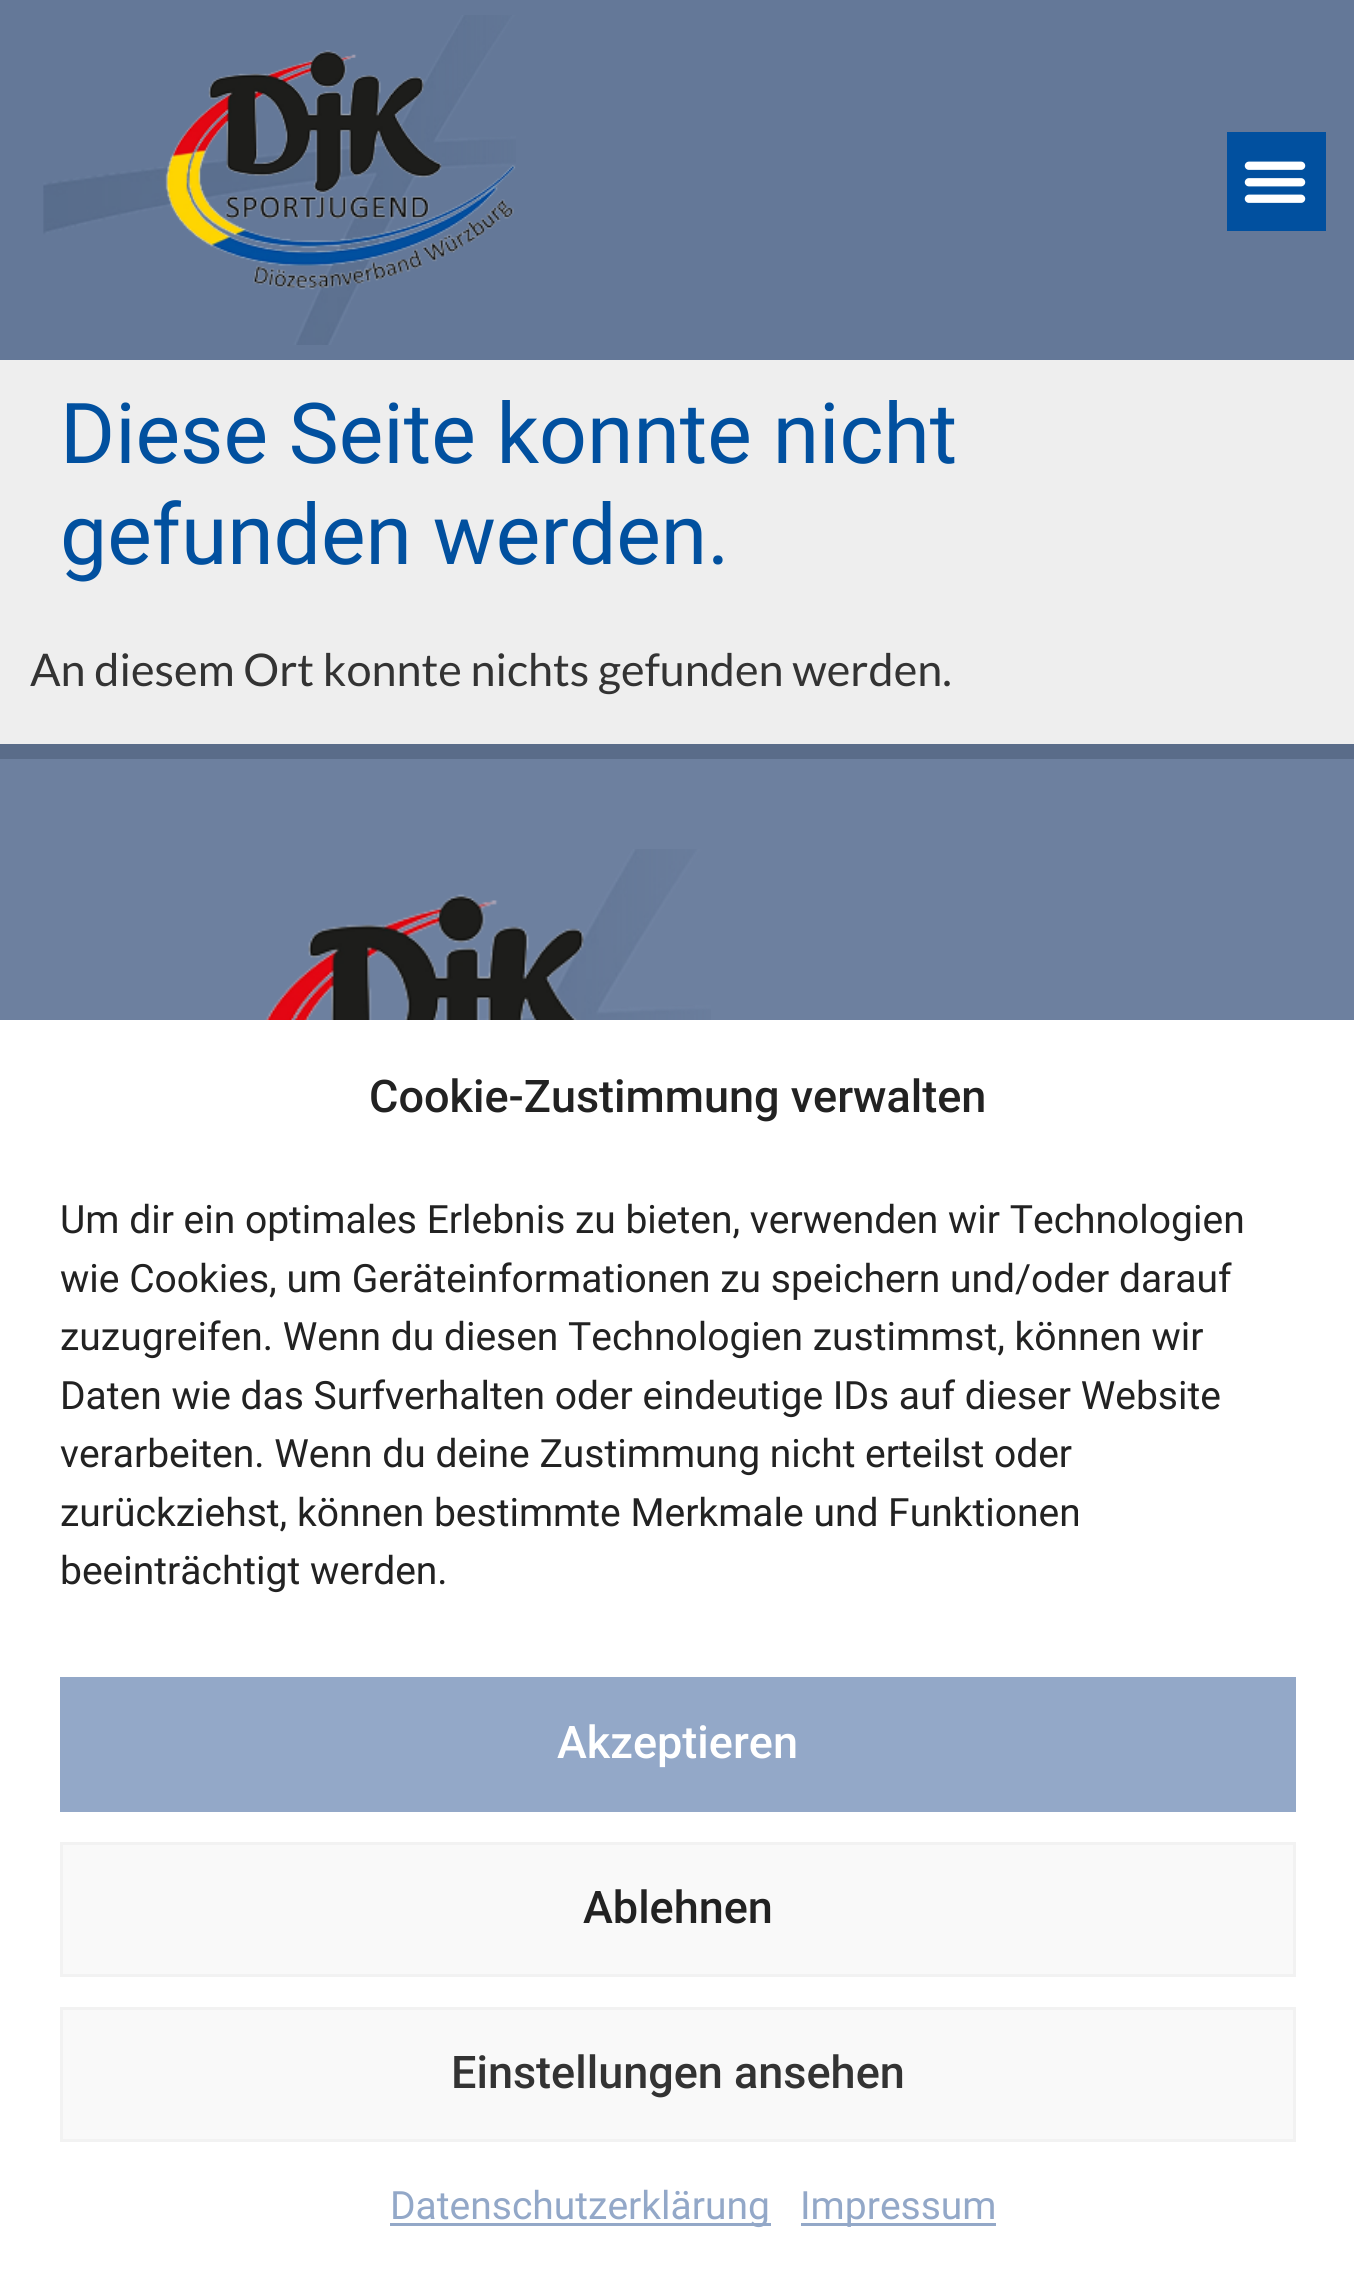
import math
import cairo

surface = cairo.ImageSurface(cairo.FORMAT_RGB24, 1354, 2281)
cr = cairo.Context(surface)
options = cairo.FontOptions()
options.set_hint_metrics(cairo.HINT_METRICS_OFF)
options.set_hint_style(cairo.HINT_STYLE_NONE)
cr.set_font_options(options)
cr.set_miter_limit(4)


def rgb(code):
    cr.set_source_rgb(*(v / 255 for v in bytes.fromhex(code[-6:])))


def image(path, x, y, w, h):
    cr.save()
    cr.set_source_surface(cairo.ImageSurface.create_from_png(path), x, y)
    cr.rectangle(x, y, w, h)
    cr.fill()
    cr.restore()


rgb("#eeeeee")
cr.paint()
rgb("#647898")
cr.rectangle(0, 0, 1354, 360)
cr.fill()
image("img/1.png", 43, 15, 473, 330)
rgb("#01509f")
cr.rectangle(1227, 132, 99, 99)
cr.fill()
image("img/2.png", 1244, 161, 62, 42)
rgb("#6d809f")
cr.rectangle(0, 759, 1354, 261)
cr.fill()
rgb("#5a6c89")
cr.rectangle(0, 744, 1354, 15)
cr.fill()
image("img/3.png", 265, 849, 446, 171)
rgb("#ffffff")
cr.rectangle(0, 1020, 1354, 1261)
cr.fill()
rgb("#93a8c8")
cr.rectangle(60, 1677, 1236, 135)
cr.fill()
rgb("#f9f9f9")
cr.rectangle(61.5, 1843.5, 1233, 132)
cr.fill_preserve()
rgb("#f2f2f2")
cr.set_line_width(3)
cr.stroke()
rgb("#f9f9f9")
cr.rectangle(61.5, 2008.5, 1233, 132)
cr.fill_preserve()
rgb("#f2f2f2")
cr.stroke()
rgb("#93a8c8")
cr.rectangle(390, 2223, 381, 3)
cr.fill()
cr.rectangle(801, 2223, 195, 3)
cr.fill()
cr.select_font_face("Roboto")
cr.set_font_size(84)
rgb("#01509f")
cr.move_to(60, 463)
cr.show_text("Diese Seite konnte nicht")
cr.move_to(60, 564)
cr.show_text("gefunden werden.")
cr.select_font_face("Lato")
cr.set_font_size(45)
rgb("#333333")
cr.move_to(30, 686)
cr.show_text("An diesem Ort konnte nichts gefunden werden.")
cr.select_font_face("Roboto Medium")
rgb("#222222")
cr.move_to(369, 1112)
cr.show_text("Cookie-Zustimmung verwalten")
cr.select_font_face("Roboto")
cr.set_font_size(39)
for x, y, s in [
    (60, 1233, "Um dir ein optimales Erlebnis zu bieten, verwenden wir Technologien"),
    (60, 1292, "wie Cookies, um Geräteinformationen zu speichern und/oder darauf"),
    (60, 1350, "zuzugreifen. Wenn du diesen Technologien zustimmst, können wir"),
    (60, 1409, "Daten wie das Surfverhalten oder eindeutige IDs auf dieser Website"),
    (60, 1467, "verarbeiten. Wenn du deine Zustimmung nicht erteilst oder"),
    (60, 1526, "zurückziehst, können bestimmte Merkmale und Funktionen"),
    (60, 1584, "beeinträchtigt werden."),
]:
    cr.move_to(x, y)
    cr.show_text(s)
cr.select_font_face("Roboto Medium")
cr.set_font_size(45)
rgb("#ffffff")
cr.move_to(557, 1758)
cr.show_text("Akzeptieren")
rgb("#222222")
cr.move_to(583, 1923)
cr.show_text("Ablehnen")
rgb("#333333")
cr.move_to(451, 2088)
cr.show_text("Einstellungen ansehen")
cr.select_font_face("Roboto")
cr.set_font_size(39)
rgb("#93a8c8")
cr.move_to(390, 2219)
cr.show_text("Datenschutzerklärung")
cr.move_to(800, 2219)
cr.show_text("Impressum")
surface.write_to_png("page.png")
